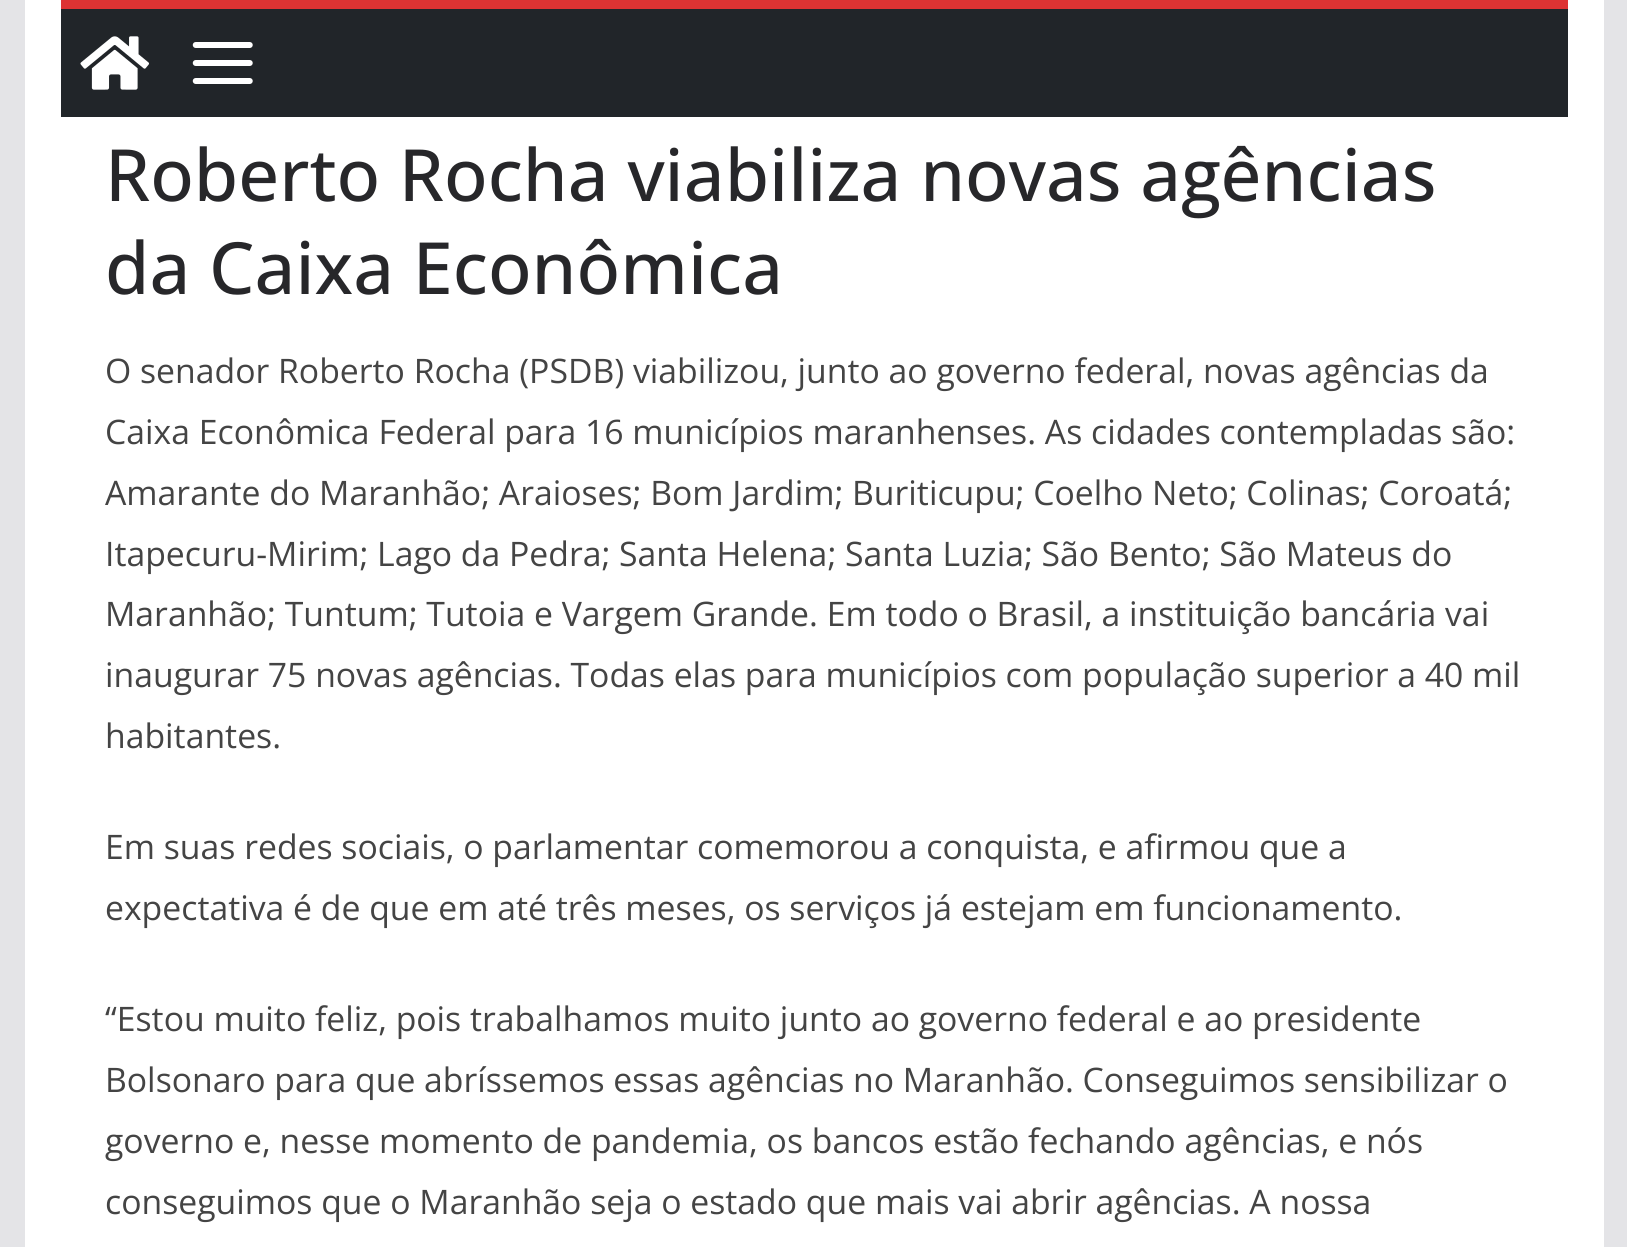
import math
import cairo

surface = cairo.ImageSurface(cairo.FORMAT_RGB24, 1627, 1247)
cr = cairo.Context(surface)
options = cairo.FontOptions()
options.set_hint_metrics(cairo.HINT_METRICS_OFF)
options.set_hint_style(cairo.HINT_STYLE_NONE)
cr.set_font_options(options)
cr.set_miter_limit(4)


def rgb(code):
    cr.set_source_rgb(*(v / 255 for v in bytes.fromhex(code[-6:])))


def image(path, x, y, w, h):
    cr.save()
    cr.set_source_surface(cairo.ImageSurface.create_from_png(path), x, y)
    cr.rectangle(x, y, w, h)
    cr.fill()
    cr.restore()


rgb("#e4e4e7")
cr.paint()
for x, y, w, h, color in [
    (25, 0, 1579, 1247, "#ffffff"),
    (61, 9, 1507, 108, "#212529"),
    (61, 0, 1507, 9, "#dd3333"),
]:
    rgb(color)
    cr.rectangle(x, y, w, h)
    cr.fill()
image("img/1.png", 80, 36, 69, 54)
image("img/2.png", 192, 42, 61, 42)
cr.select_font_face("Open Sans Medium")
cr.set_font_size(72)
rgb("#27272a")
cr.move_to(105, 201)
cr.show_text("Roberto Rocha viabiliza novas agências")
cr.move_to(105, 294)
cr.show_text("da Caixa Econômica")
cr.select_font_face("Open Sans")
cr.set_font_size(33.75)
rgb("#444444")
for x, y, s in [
    (105, 383, "O senador Roberto Rocha (PSDB) viabilizou, junto ao governo federal, novas agências da"),
    (105, 444, "Caixa Econômica Federal para 16 municípios maranhenses. As cidades contempladas são:"),
    (105, 505, "Amarante do Maranhão; Araioses; Bom Jardim; Buriticupu; Coelho Neto; Colinas; Coroatá;"),
    (105, 566, "Itapecuru-Mirim; Lago da Pedra; Santa Helena; Santa Luzia; São Bento; São Mateus do"),
    (105, 626, "Maranhão; Tuntum; Tutoia e Vargem Grande. Em todo o Brasil, a instituição bancária vai"),
    (105, 687, "inaugurar 75 novas agências. Todas elas para municípios com população superior a 40 mil"),
    (105, 748, "habitantes."),
    (105, 859, "Em suas redes sociais, o parlamentar comemorou a conquista, e afirmou que a"),
    (105, 920, "expectativa é de que em até três meses, os serviços já estejam em funcionamento."),
    (105, 1031, "“Estou muito feliz, pois trabalhamos muito junto ao governo federal e ao presidente"),
    (105, 1092, "Bolsonaro para que abríssemos essas agências no Maranhão. Conseguimos sensibilizar o"),
    (105, 1153, "governo e, nesse momento de pandemia, os bancos estão fechando agências, e nós"),
    (105, 1214, "conseguimos que o Maranhão seja o estado que mais vai abrir agências. A nossa"),
]:
    cr.move_to(x, y)
    cr.show_text(s)
surface.write_to_png("page.png")
